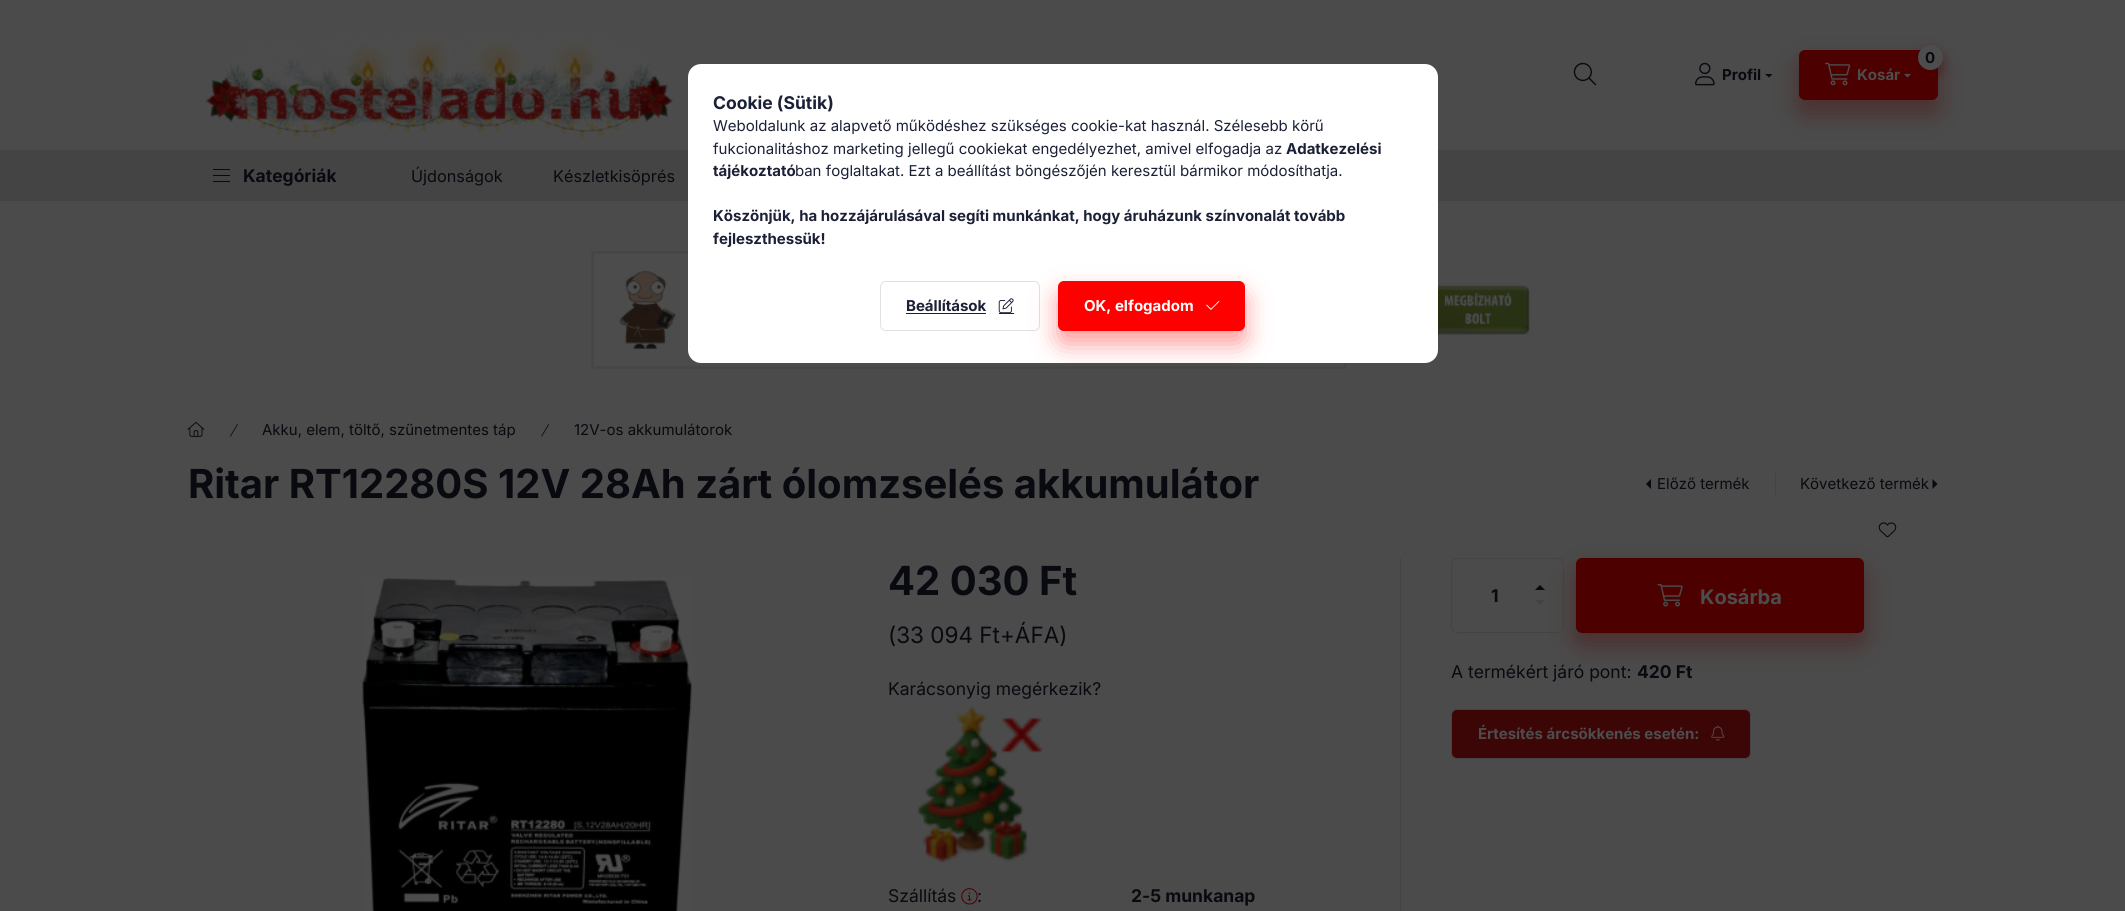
import math
import cairo

surface = cairo.ImageSurface(cairo.FORMAT_RGB24, 2125, 911)
cr = cairo.Context(surface)
options = cairo.FontOptions()
options.set_hint_metrics(cairo.HINT_METRICS_OFF)
options.set_hint_style(cairo.HINT_STYLE_NONE)
cr.set_font_options(options)
cr.set_miter_limit(4)


def rgb(code):
    cr.set_source_rgb(*(v / 255 for v in bytes.fromhex(code[-6:])))


def rrect(x, y, w, h, r):
    cr.new_sub_path()
    for i, (u, v) in enumerate([(x + w - r, y + h - r), (x + r, y + h - r), (x + r, y + r), (x + w - r, y + r)]):
        cr.arc(u, v, r, i * math.pi / 2, (i + 1) * math.pi / 2)
    cr.close_path()


def soft_shadow(x, y, w, h, r, blur, alpha):
    cr.push_group_with_content(cairo.CONTENT_ALPHA)
    cr.set_operator(cairo.OPERATOR_SOURCE)
    for i in range(15, -16, -2):
        e = blur * i / 6
        if min(w, h) + 2 * e > 0:
            cr.set_source_rgba(0, 0, 0, alpha * math.erfc((i - 1) / 8.5) / 2)
            rrect(x - e, y - e, w + 2 * e, h + 2 * e, max(0, min(r + e + blur * .6, min(w, h) / 2 + e)))
            cr.fill()
    cr.mask(cr.pop_group())


def image(path, x, y, w, h):
    cr.save()
    cr.set_source_surface(cairo.ImageSurface.create_from_png(path), x, y)
    cr.rectangle(x, y, w, h)
    cr.fill()
    cr.restore()


rgb("#4b4b4b")
cr.paint()
image("img/1.png", 205, 35, 469, 104)
image("img/2.png", 1573, 62, 24, 24)
image("img/3.png", 1695, 62, 20, 24)
rgb("#444444")
cr.rectangle(0, 150, 2125, 51)
cr.fill()
rgb("#4d0000")
soft_shadow(1799, 63, 139, 50, 6, 12.5, 0.4)
rgb("#080a10")
cr.new_path()
cr.move_to(1765, 74)
cr.line_to(1772.5, 74)
cr.line_to(1769, 77.5)
cr.close_path()
cr.fill()
rgb("#4d0000")
rrect(1799, 50, 139, 50, 6)
cr.fill()
rgb("#4d0000")
soft_shadow(1918, 51, 25, 25, 12.5, 6, 0.4)
rgb("#4d4d4d")
cr.arc(1930.5, 57.5, 12.5, 0, 2 * math.pi)
cr.fill()
image("img/4.png", 1825, 62, 26, 24)
cr.new_path()
cr.move_to(1904, 74)
cr.line_to(1911, 74)
cr.line_to(1907.5, 77.5)
cr.close_path()
cr.fill()
for x, y, w, h, color in [
    (213, 169, 17, 1, "#080a10"),
    (213, 175, 17, 1, "#080a10"),
    (213, 181, 17, 1, "#080a10"),
]:
    rgb(color)
    cr.rectangle(x, y, w, h)
    cr.fill()
image("img/5.png", 591, 251, 756, 118)
image("img/6.png", 1438, 285, 92, 50)
image("img/7.png", 187, 421, 18, 16)
image("img/8.png", 230, 424, 8, 13)
image("img/9.png", 541, 424, 8, 13)
cr.new_path()
cr.move_to(1651, 489)
cr.line_to(1651, 479)
cr.line_to(1646, 484)
cr.close_path()
cr.fill()
rgb("#444444")
cr.rectangle(1775, 473, 1, 22)
cr.fill()
rgb("#080a10")
cr.new_path()
cr.move_to(1932.5, 489)
cr.line_to(1932.5, 479)
cr.line_to(1937.5, 484)
cr.close_path()
cr.fill()
rrect(1451.5, 558.5, 112, 74, 5.5)
rgb("#444444")
cr.set_line_width(1)
cr.stroke()
rgb("#080a10")
cr.new_path()
cr.move_to(1545, 590)
cr.line_to(1535, 590)
cr.line_to(1540, 585)
cr.close_path()
cr.fill()
rgb("#424242")
cr.new_path()
cr.move_to(1535, 600)
cr.line_to(1545, 600)
cr.line_to(1540, 605)
cr.close_path()
cr.fill()
rgb("#4d0000")
soft_shadow(1576, 570, 288, 75, 6, 12.5, 0.4)
image("img/10.png", 1878, 522, 19, 16)
image("img/11.png", 362, 577, 331, 334)
image("img/12.png", 917, 705, 127, 158)
image("img/13.png", 961, 888, 17, 17)
rgb("#444444")
cr.rectangle(1400, 558, 1, 353)
cr.fill()
rgb("#4d0000")
rrect(1576, 558, 288, 75, 6)
cr.fill()
image("img/14.png", 1657, 584, 26, 23)
rgb("#3d0606")
rrect(1451.5, 709.5, 299, 49, 5.5)
cr.fill_preserve()
rgb("#444444")
cr.stroke()
image("img/15.png", 1711, 725, 14, 16)
rgb("#ffffff")
rrect(688, 64, 750, 299, 13)
cr.fill()
rrect(880.5, 281.5, 159, 49, 5.5)
rgb("#e1e1e1")
cr.stroke()
rgb("#1b2036")
cr.rectangle(906, 313, 80, 1)
cr.fill()
image("img/16.png", 998, 298, 16, 15)
cr.rectangle(999, 313, 15, 1)
cr.fill()
cr.save()
rrect(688, 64, 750, 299, 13)
cr.clip()
rgb("#ff0000")
soft_shadow(1058, 294, 187, 50, 6, 12.5, 0.4)
cr.restore()
rgb("#ff0000")
rrect(1058.5, 281.5, 186, 49, 5.5)
cr.fill_preserve()
cr.stroke()
image("img/17.png", 1206, 301, 14, 9)
cr.select_font_face("Inter", cairo.FONT_SLANT_NORMAL, cairo.FONT_WEIGHT_BOLD)
cr.set_font_size(15)
rgb("#080a10")
cr.move_to(1722, 80)
cr.show_text("Profil")
cr.move_to(1925, 63)
cr.show_text("0")
rgb("#4d4d4d")
cr.move_to(1857, 80)
cr.show_text("Kosár")
cr.set_font_size(17.5)
rgb("#080a10")
cr.move_to(243, 182)
cr.show_text("Kategóriák")
cr.select_font_face("Inter")
cr.set_font_size(16.25)
cr.move_to(411, 182)
cr.show_text("Újdonságok")
cr.move_to(553, 182)
cr.show_text("Készletkisöprés")
cr.set_font_size(15)
cr.move_to(262, 435)
cr.show_text("Akku, elem, töltő, szünetmentes táp")
cr.move_to(574, 435)
cr.show_text("12V-os akkumulátorok")
cr.select_font_face("Inter", cairo.FONT_SLANT_NORMAL, cairo.FONT_WEIGHT_BOLD)
cr.set_font_size(40)
cr.move_to(188, 498)
cr.show_text("Ritar RT12280S 12V 28Ah zárt ólomzselés akkumulátor")
cr.select_font_face("Inter")
cr.set_font_size(15)
cr.move_to(1657, 489)
cr.show_text("Előző termék")
cr.move_to(1800, 489)
cr.show_text("Következő termék")
cr.select_font_face("Inter", cairo.FONT_SLANT_NORMAL, cairo.FONT_WEIGHT_BOLD)
cr.set_font_size(40)
cr.move_to(888, 595)
cr.show_text("42 030 Ft")
cr.select_font_face("Inter")
cr.set_font_size(22.5)
cr.move_to(888, 643)
cr.show_text("(33 094 Ft+ÁFA)")
cr.set_font_size(17.5)
for x, y, s in [
    (888, 695, "Karácsonyig megérkezik?"),
    (888, 902, "Szállítás"),
    (977, 902, ":"),
]:
    cr.move_to(x, y)
    cr.show_text(s)
cr.select_font_face("Inter", cairo.FONT_SLANT_NORMAL, cairo.FONT_WEIGHT_BOLD)
cr.move_to(1131, 902)
cr.show_text("2-5 munkanap")
cr.move_to(1491, 602)
cr.show_text("1")
cr.set_font_size(20)
rgb("#4d4d4d")
cr.move_to(1700, 604)
cr.show_text("Kosárba")
cr.select_font_face("Inter")
cr.set_font_size(17.5)
rgb("#080a10")
cr.move_to(1451, 678)
cr.show_text("A termékért járó pont:")
cr.select_font_face("Inter", cairo.FONT_SLANT_NORMAL, cairo.FONT_WEIGHT_BOLD)
cr.move_to(1637, 678)
cr.show_text("420 Ft")
cr.set_font_size(15)
rgb("#4d4d4d")
cr.move_to(1478, 739)
cr.show_text("Értesítés árcsökkenés esetén:")
cr.set_font_size(17.5)
rgb("#1b2036")
cr.move_to(713, 109)
cr.show_text("Cookie (Sütik)")
cr.select_font_face("Inter")
cr.set_font_size(15)
cr.move_to(713, 131)
cr.show_text("Weboldalunk az alapvető működéshez szükséges cookie-kat használ. Szélesebb körű")
cr.move_to(713, 154)
cr.show_text("fukcionalitáshoz marketing jellegű cookiekat engedélyezhet, amivel elfogadja az")
cr.select_font_face("Inter", cairo.FONT_SLANT_NORMAL, cairo.FONT_WEIGHT_BOLD)
cr.move_to(1286, 154)
cr.show_text("Adatkezelési")
cr.move_to(713, 176)
cr.show_text("tájékoztató")
cr.select_font_face("Inter")
cr.move_to(795, 176)
cr.show_text("ban foglaltakat. Ezt a beállítást böngészőjén keresztül bármikor módosíthatja.")
cr.select_font_face("Inter", cairo.FONT_SLANT_NORMAL, cairo.FONT_WEIGHT_BOLD)
for x, y, s in [
    (713, 221, "Köszönjük, ha hozzájárulásával segíti munkánkat, hogy áruházunk színvonalát tovább"),
    (713, 244, "fejleszthessük!"),
    (906, 311, "Beállítások"),
]:
    cr.move_to(x, y)
    cr.show_text(s)
rgb("#ffffff")
cr.move_to(1084, 311)
cr.show_text("OK, elfogadom")
surface.write_to_png("page.png")
